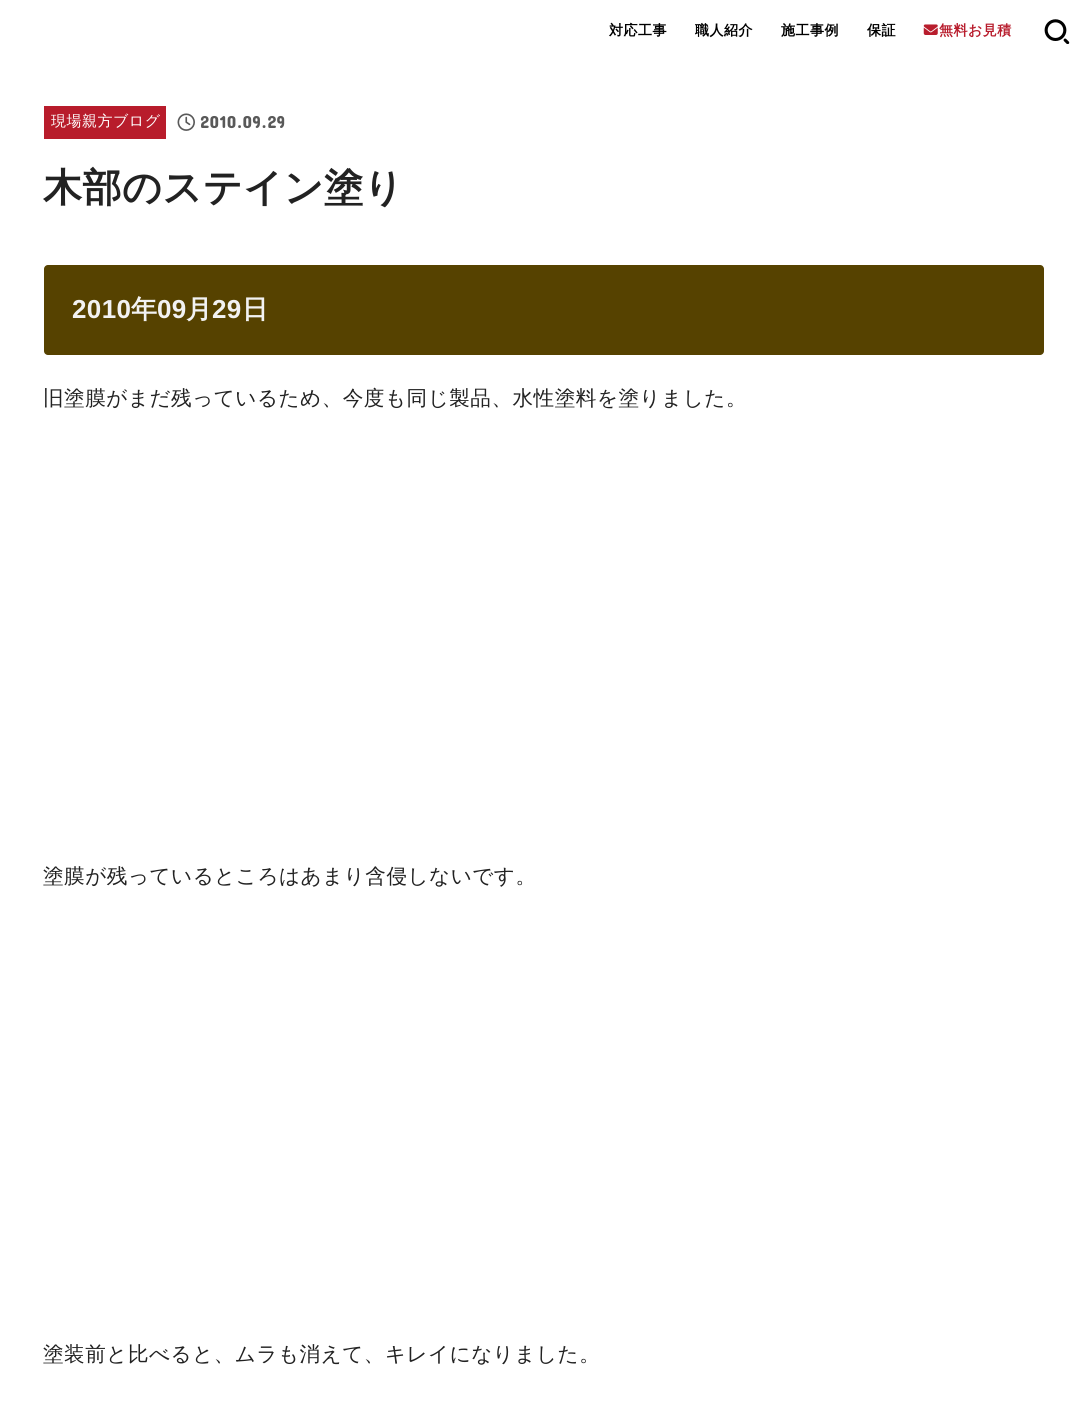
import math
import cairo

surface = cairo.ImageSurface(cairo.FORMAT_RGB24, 1087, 1414)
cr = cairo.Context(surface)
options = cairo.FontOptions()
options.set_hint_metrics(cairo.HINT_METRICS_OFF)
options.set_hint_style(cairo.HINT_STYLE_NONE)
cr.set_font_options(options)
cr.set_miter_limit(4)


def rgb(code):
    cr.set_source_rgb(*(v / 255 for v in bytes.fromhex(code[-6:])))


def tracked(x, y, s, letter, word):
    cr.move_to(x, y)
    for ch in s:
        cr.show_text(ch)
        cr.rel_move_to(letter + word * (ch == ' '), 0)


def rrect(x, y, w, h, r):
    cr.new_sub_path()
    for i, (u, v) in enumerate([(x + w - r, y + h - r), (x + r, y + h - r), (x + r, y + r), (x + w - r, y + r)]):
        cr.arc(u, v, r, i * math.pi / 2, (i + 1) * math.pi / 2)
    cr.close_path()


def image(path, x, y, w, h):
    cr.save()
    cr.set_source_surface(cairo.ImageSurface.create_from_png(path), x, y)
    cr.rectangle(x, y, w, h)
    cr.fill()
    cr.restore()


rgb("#ffffff")
cr.paint()
image("img/1.png", 923, 24, 15, 11)
image("img/2.png", 1044, 19, 26, 25)
rgb("#b81c2b")
cr.rectangle(44, 106, 122, 33)
cr.fill()
image("img/3.png", 177, 113, 18, 18)
rgb("#564200")
rrect(44, 265, 1000, 90, 4)
cr.fill()
cr.select_font_face("WenQuanYi Zen Hei", cairo.FONT_SLANT_NORMAL, cairo.FONT_WEIGHT_BOLD)
cr.set_font_size(14)
rgb("#000000")
for x, y, s in [
    (609, 35, "対応工事"),
    (695, 35, "職人紹介"),
    (781, 35, "施工事例"),
    (867, 35, "保証"),
]:
    tracked(x, y, s, 0.5, 0)
rgb("#b81d2d")
tracked(939, 35, "無料お見積", 0.5, 0)
cr.select_font_face("WenQuanYi Zen Hei Medium")
cr.set_font_size(15)
rgb("#ffffff")
tracked(51, 126, "現場親方ブログ", 0.5, 0)
cr.select_font_face("Concert One")
cr.set_font_size(17.5)
rgb("#595959")
tracked(200, 128, "2010.09.29", 0.5, 0)
cr.select_font_face("WenQuanYi Zen Hei", cairo.FONT_SLANT_NORMAL, cairo.FONT_WEIGHT_BOLD)
cr.set_font_size(39.1)
rgb("#222222")
tracked(43, 201, "木部のステイン塗り", 0.4, 0)
cr.select_font_face("Liberation Sans", cairo.FONT_SLANT_NORMAL, cairo.FONT_WEIGHT_BOLD)
cr.set_font_size(26)
rgb("#f2f2f2")
tracked(72, 318, "2010", 0.4, 0)
cr.select_font_face("WenQuanYi Zen Hei", cairo.FONT_SLANT_NORMAL, cairo.FONT_WEIGHT_BOLD)
tracked(131, 318, "年", 0.4, 0)
cr.select_font_face("Liberation Sans", cairo.FONT_SLANT_NORMAL, cairo.FONT_WEIGHT_BOLD)
tracked(157, 318, "09", 0.4, 0)
cr.select_font_face("WenQuanYi Zen Hei", cairo.FONT_SLANT_NORMAL, cairo.FONT_WEIGHT_BOLD)
tracked(186, 318, "月", 0.4, 0)
cr.select_font_face("Liberation Sans", cairo.FONT_SLANT_NORMAL, cairo.FONT_WEIGHT_BOLD)
tracked(212, 318, "29", 0.4, 0)
cr.select_font_face("WenQuanYi Zen Hei", cairo.FONT_SLANT_NORMAL, cairo.FONT_WEIGHT_BOLD)
tracked(242, 318, "日", 0.4, 0)
cr.select_font_face("WenQuanYi Zen Hei Medium")
cr.set_font_size(20.6)
rgb("#222222")
for x, y, s in [
    (43, 405, "旧塗膜がまだ残っているため、今度も同じ製品、水性塗料を塗りました。"),
    (43, 883, "塗膜が残っているところはあまり含侵しないです。"),
    (43, 1361, "塗装前と比べると、ムラも消えて、キレイになりました。"),
]:
    tracked(x, y, s, 0.5, 0)
surface.write_to_png("page.png")
